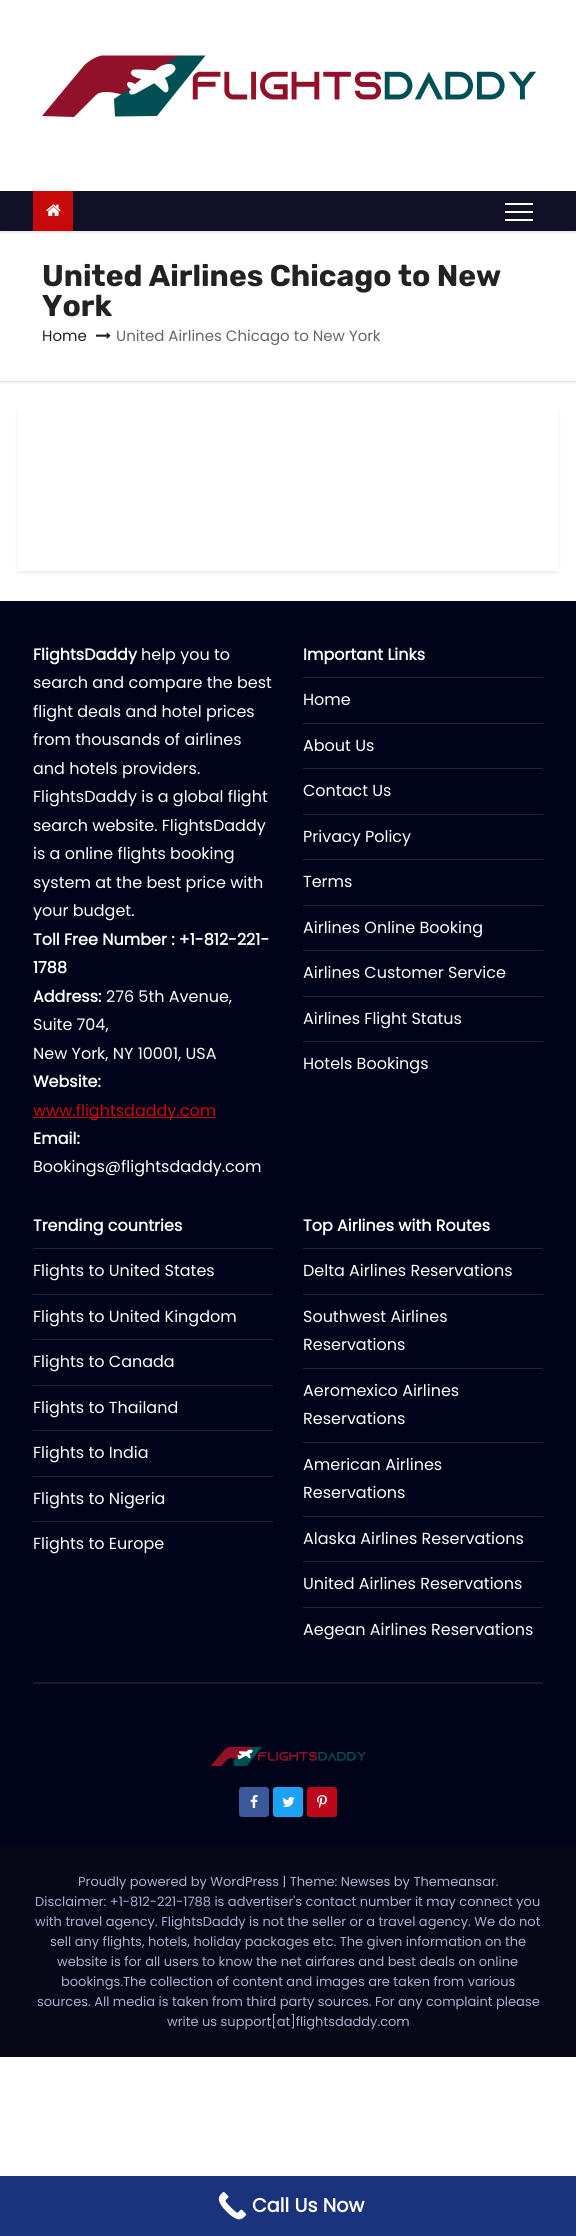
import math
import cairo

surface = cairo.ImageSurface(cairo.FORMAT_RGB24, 576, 2236)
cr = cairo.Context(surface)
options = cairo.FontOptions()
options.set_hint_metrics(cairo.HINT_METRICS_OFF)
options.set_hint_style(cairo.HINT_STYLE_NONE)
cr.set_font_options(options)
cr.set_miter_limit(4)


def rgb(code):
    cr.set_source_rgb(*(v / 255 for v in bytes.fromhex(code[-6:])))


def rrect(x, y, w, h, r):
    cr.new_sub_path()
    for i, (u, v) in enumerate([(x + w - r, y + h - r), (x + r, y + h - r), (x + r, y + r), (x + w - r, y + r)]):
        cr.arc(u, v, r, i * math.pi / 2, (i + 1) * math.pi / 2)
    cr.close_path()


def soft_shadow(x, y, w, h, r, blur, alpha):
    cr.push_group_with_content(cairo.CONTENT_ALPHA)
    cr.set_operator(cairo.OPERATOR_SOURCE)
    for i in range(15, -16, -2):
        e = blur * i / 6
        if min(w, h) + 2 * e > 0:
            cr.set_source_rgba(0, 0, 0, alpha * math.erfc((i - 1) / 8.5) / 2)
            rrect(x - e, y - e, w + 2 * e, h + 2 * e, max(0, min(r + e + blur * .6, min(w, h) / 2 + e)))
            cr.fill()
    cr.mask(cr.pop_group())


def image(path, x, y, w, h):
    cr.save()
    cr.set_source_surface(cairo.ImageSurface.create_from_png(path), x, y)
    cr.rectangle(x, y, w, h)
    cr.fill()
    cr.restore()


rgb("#ffffff")
cr.paint()
image("img/1.png", 42, 55, 495, 62)
rgb("#000000")
soft_shadow(0, 193, 576, 40, 0, 1, 0.08)
cr.save()
cr.rectangle(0, 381, 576, 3)
cr.clip()
soft_shadow(0, 232, 576, 150, 0, 1.5, 0.15)
cr.restore()
rgb("#121026")
cr.rectangle(0, 191, 576, 40)
cr.fill()
rgb("#c70909")
cr.rectangle(33, 191, 40, 40)
cr.fill()
image("img/2.png", 46, 204, 15, 12)
for x, y, w, h, color in [
    (505, 203, 28, 2, "#ffffff"),
    (505, 211, 28, 2, "#ffffff"),
    (505, 219, 28, 2, "#ffffff"),
]:
    rgb(color)
    cr.rectangle(x, y, w, h)
    cr.fill()
image("img/3.png", 96, 332, 15, 7)
cr.save()
cr.set_fill_rule(cairo.FILL_RULE_EVEN_ODD)
cr.new_path()
cr.move_to(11, 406)
cr.line_to(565, 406)
cr.line_to(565, 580)
cr.line_to(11, 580)
cr.close_path()
cr.move_to(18, 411)
cr.line_to(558, 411)
cr.line_to(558, 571)
cr.line_to(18, 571)
cr.close_path()
cr.clip()
rgb("#000000")
soft_shadow(18, 413, 540, 160, 0, 2, 0.08)
cr.restore()
for x, y, w, h, color in [
    (0, 601, 576, 1246, "#000319"),
    (33, 1117, 183, 1, "#c70909"),
    (303, 677, 240, 1, "#242425"),
    (303, 723, 240, 1, "#242425"),
    (303, 768, 240, 1, "#242425"),
    (303, 814, 240, 1, "#242425"),
    (303, 859, 240, 1, "#242425"),
    (303, 905, 240, 1, "#242425"),
    (303, 950, 240, 1, "#242425"),
    (303, 996, 240, 1, "#242425"),
    (303, 1041, 240, 1, "#242425"),
    (33, 1248, 240, 1, "#242425"),
    (33, 1294, 240, 1, "#242425"),
    (33, 1339, 240, 1, "#242425"),
    (33, 1385, 240, 1, "#242425"),
    (33, 1430, 240, 1, "#242425"),
    (33, 1476, 240, 1, "#242425"),
    (33, 1521, 240, 1, "#242425"),
    (303, 1248, 240, 1, "#242425"),
    (303, 1294, 240, 1, "#242425"),
    (303, 1368, 240, 1, "#242425"),
    (303, 1442, 240, 1, "#242425"),
    (303, 1516, 240, 1, "#242425"),
    (303, 1561, 240, 1, "#242425"),
    (303, 1607, 240, 1, "#242425"),
    (33, 1682, 510, 2, "#1a182e"),
]:
    rgb(color)
    cr.rectangle(x, y, w, h)
    cr.fill()
image("img/4.png", 210, 1746, 156, 21)
rgb("#3b5998")
rrect(239, 1787, 30, 30, 3)
cr.fill()
image("img/5.png", 250, 1795, 8, 13)
rgb("#1da1f2")
rrect(273, 1787, 30, 30, 3)
cr.fill()
image("img/6.png", 282, 1797, 13, 10)
rgb("#bd081c")
rrect(307, 1787, 30, 30, 3)
cr.fill()
image("img/7.png", 317, 1795, 10, 13)
rgb("#090818")
cr.rectangle(0, 1847, 576, 210)
cr.fill()
rgb("#1b337c")
cr.rectangle(0, 2176, 576, 60)
cr.fill()
image("img/8.png", 218, 2192, 29, 28)
cr.select_font_face("Rubik", cairo.FONT_SLANT_NORMAL, cairo.FONT_WEIGHT_BOLD)
cr.set_font_size(30)
rgb("#222222")
cr.move_to(42, 286)
cr.show_text("United Airlines Chicago to New")
cr.move_to(42, 316)
cr.show_text("York")
cr.select_font_face("Poppins")
cr.set_font_size(15)
cr.move_to(42, 341)
cr.show_text("Home")
rgb("#666666")
cr.move_to(116, 341)
cr.show_text("United Airlines Chicago to New York")
cr.select_font_face("Poppins", cairo.FONT_SLANT_NORMAL, cairo.FONT_WEIGHT_BOLD)
cr.set_font_size(16)
rgb("#ffffff")
cr.move_to(33, 660)
cr.show_text("FlightsDaddy")
cr.select_font_face("Poppins")
for x, y, s in [
    (141, 660, "help you to"),
    (33, 688, "search and compare the best"),
    (33, 717, "flight deals and hotel prices"),
    (33, 745, "from thousands of airlines"),
    (33, 774, "and hotels providers."),
    (33, 802, "FlightsDaddy is a global flight"),
    (33, 831, "search website. FlightsDaddy"),
    (33, 859, "is a online flights booking"),
    (33, 888, "system at the best price with"),
    (33, 916, "your budget."),
]:
    cr.move_to(x, y)
    cr.show_text(s)
cr.select_font_face("Poppins", cairo.FONT_SLANT_NORMAL, cairo.FONT_WEIGHT_BOLD)
for x, y, s in [
    (33, 945, "Toll Free Number : +1-812-221-"),
    (33, 973, "1788"),
    (33, 1002, "Address:"),
]:
    cr.move_to(x, y)
    cr.show_text(s)
cr.select_font_face("Poppins")
for x, y, s in [
    (106, 1002, "276 5th Avenue,"),
    (33, 1030, "Suite 704,"),
    (33, 1059, "New York, NY 10001, USA"),
]:
    cr.move_to(x, y)
    cr.show_text(s)
cr.select_font_face("Poppins", cairo.FONT_SLANT_NORMAL, cairo.FONT_WEIGHT_BOLD)
cr.move_to(33, 1087)
cr.show_text("Website:")
cr.select_font_face("Poppins")
rgb("#c70909")
cr.move_to(33, 1116)
cr.show_text("www.flightsdaddy.com")
cr.select_font_face("Poppins", cairo.FONT_SLANT_NORMAL, cairo.FONT_WEIGHT_BOLD)
rgb("#ffffff")
cr.move_to(33, 1144)
cr.show_text("Email:")
cr.select_font_face("Poppins")
cr.move_to(33, 1172)
cr.show_text("Bookings@flightsdaddy.com")
cr.select_font_face("Poppins", cairo.FONT_SLANT_NORMAL, cairo.FONT_WEIGHT_BOLD)
cr.move_to(303, 660)
cr.show_text("Important Links")
cr.select_font_face("Poppins")
for x, y, s in [
    (303, 705, "Home"),
    (303, 751, "About Us"),
    (303, 796, "Contact Us"),
    (303, 842, "Privacy Policy"),
    (303, 887, "Terms"),
    (303, 933, "Airlines Online Booking"),
    (303, 978, "Airlines Customer Service"),
    (303, 1024, "Airlines Flight Status"),
    (303, 1069, "Hotels Bookings"),
]:
    cr.move_to(x, y)
    cr.show_text(s)
cr.select_font_face("Poppins", cairo.FONT_SLANT_NORMAL, cairo.FONT_WEIGHT_BOLD)
cr.move_to(33, 1231)
cr.show_text("Trending countries")
cr.select_font_face("Poppins")
for x, y, s in [
    (33, 1276, "Flights to United States"),
    (33, 1322, "Flights to United Kingdom"),
    (33, 1367, "Flights to Canada"),
    (33, 1413, "Flights to Thailand"),
    (33, 1458, "Flights to India"),
    (33, 1504, "Flights to Nigeria"),
    (33, 1549, "Flights to Europe"),
]:
    cr.move_to(x, y)
    cr.show_text(s)
cr.select_font_face("Poppins", cairo.FONT_SLANT_NORMAL, cairo.FONT_WEIGHT_BOLD)
cr.move_to(303, 1231)
cr.show_text("Top Airlines with Routes")
cr.select_font_face("Poppins")
for x, y, s in [
    (303, 1276, "Delta Airlines Reservations"),
    (303, 1322, "Southwest Airlines"),
    (303, 1350, "Reservations"),
    (303, 1396, "Aeromexico Airlines"),
    (303, 1424, "Reservations"),
    (303, 1470, "American Airlines"),
    (303, 1498, "Reservations"),
    (303, 1544, "Alaska Airlines Reservations"),
    (303, 1589, "United Airlines Reservations"),
    (303, 1635, "Aegean Airlines Reservations"),
]:
    cr.move_to(x, y)
    cr.show_text(s)
cr.set_font_size(13)
rgb("#aaaed1")
for x, y, s in [
    (78, 1886, "Proudly powered by WordPress | Theme: Newses by Themeansar."),
    (35, 1906, "Disclaimer: +1-812-221-1788 is advertiser's contact number it may connect you"),
    (35, 1926, "with travel agency. FlightsDaddy is not the seller or a travel agency. We do not"),
    (50, 1946, "sell any flights, hotels, holiday packages etc. The given information on the"),
    (57, 1966, "website is for all users to know the net airfares and best deals on online"),
    (61, 1986, "bookings.The collection of content and images are taken from various"),
    (37, 2006, "sources. All media is taken from third party sources. For any complaint please"),
    (167, 2026, "write us support[at]flightsdaddy.com"),
]:
    cr.move_to(x, y)
    cr.show_text(s)
cr.select_font_face("Poppins", cairo.FONT_SLANT_NORMAL, cairo.FONT_WEIGHT_BOLD)
cr.set_font_size(19.25)
rgb("#ffffff")
cr.move_to(252, 2212)
cr.show_text("Call Us Now")
surface.write_to_png("page.png")
